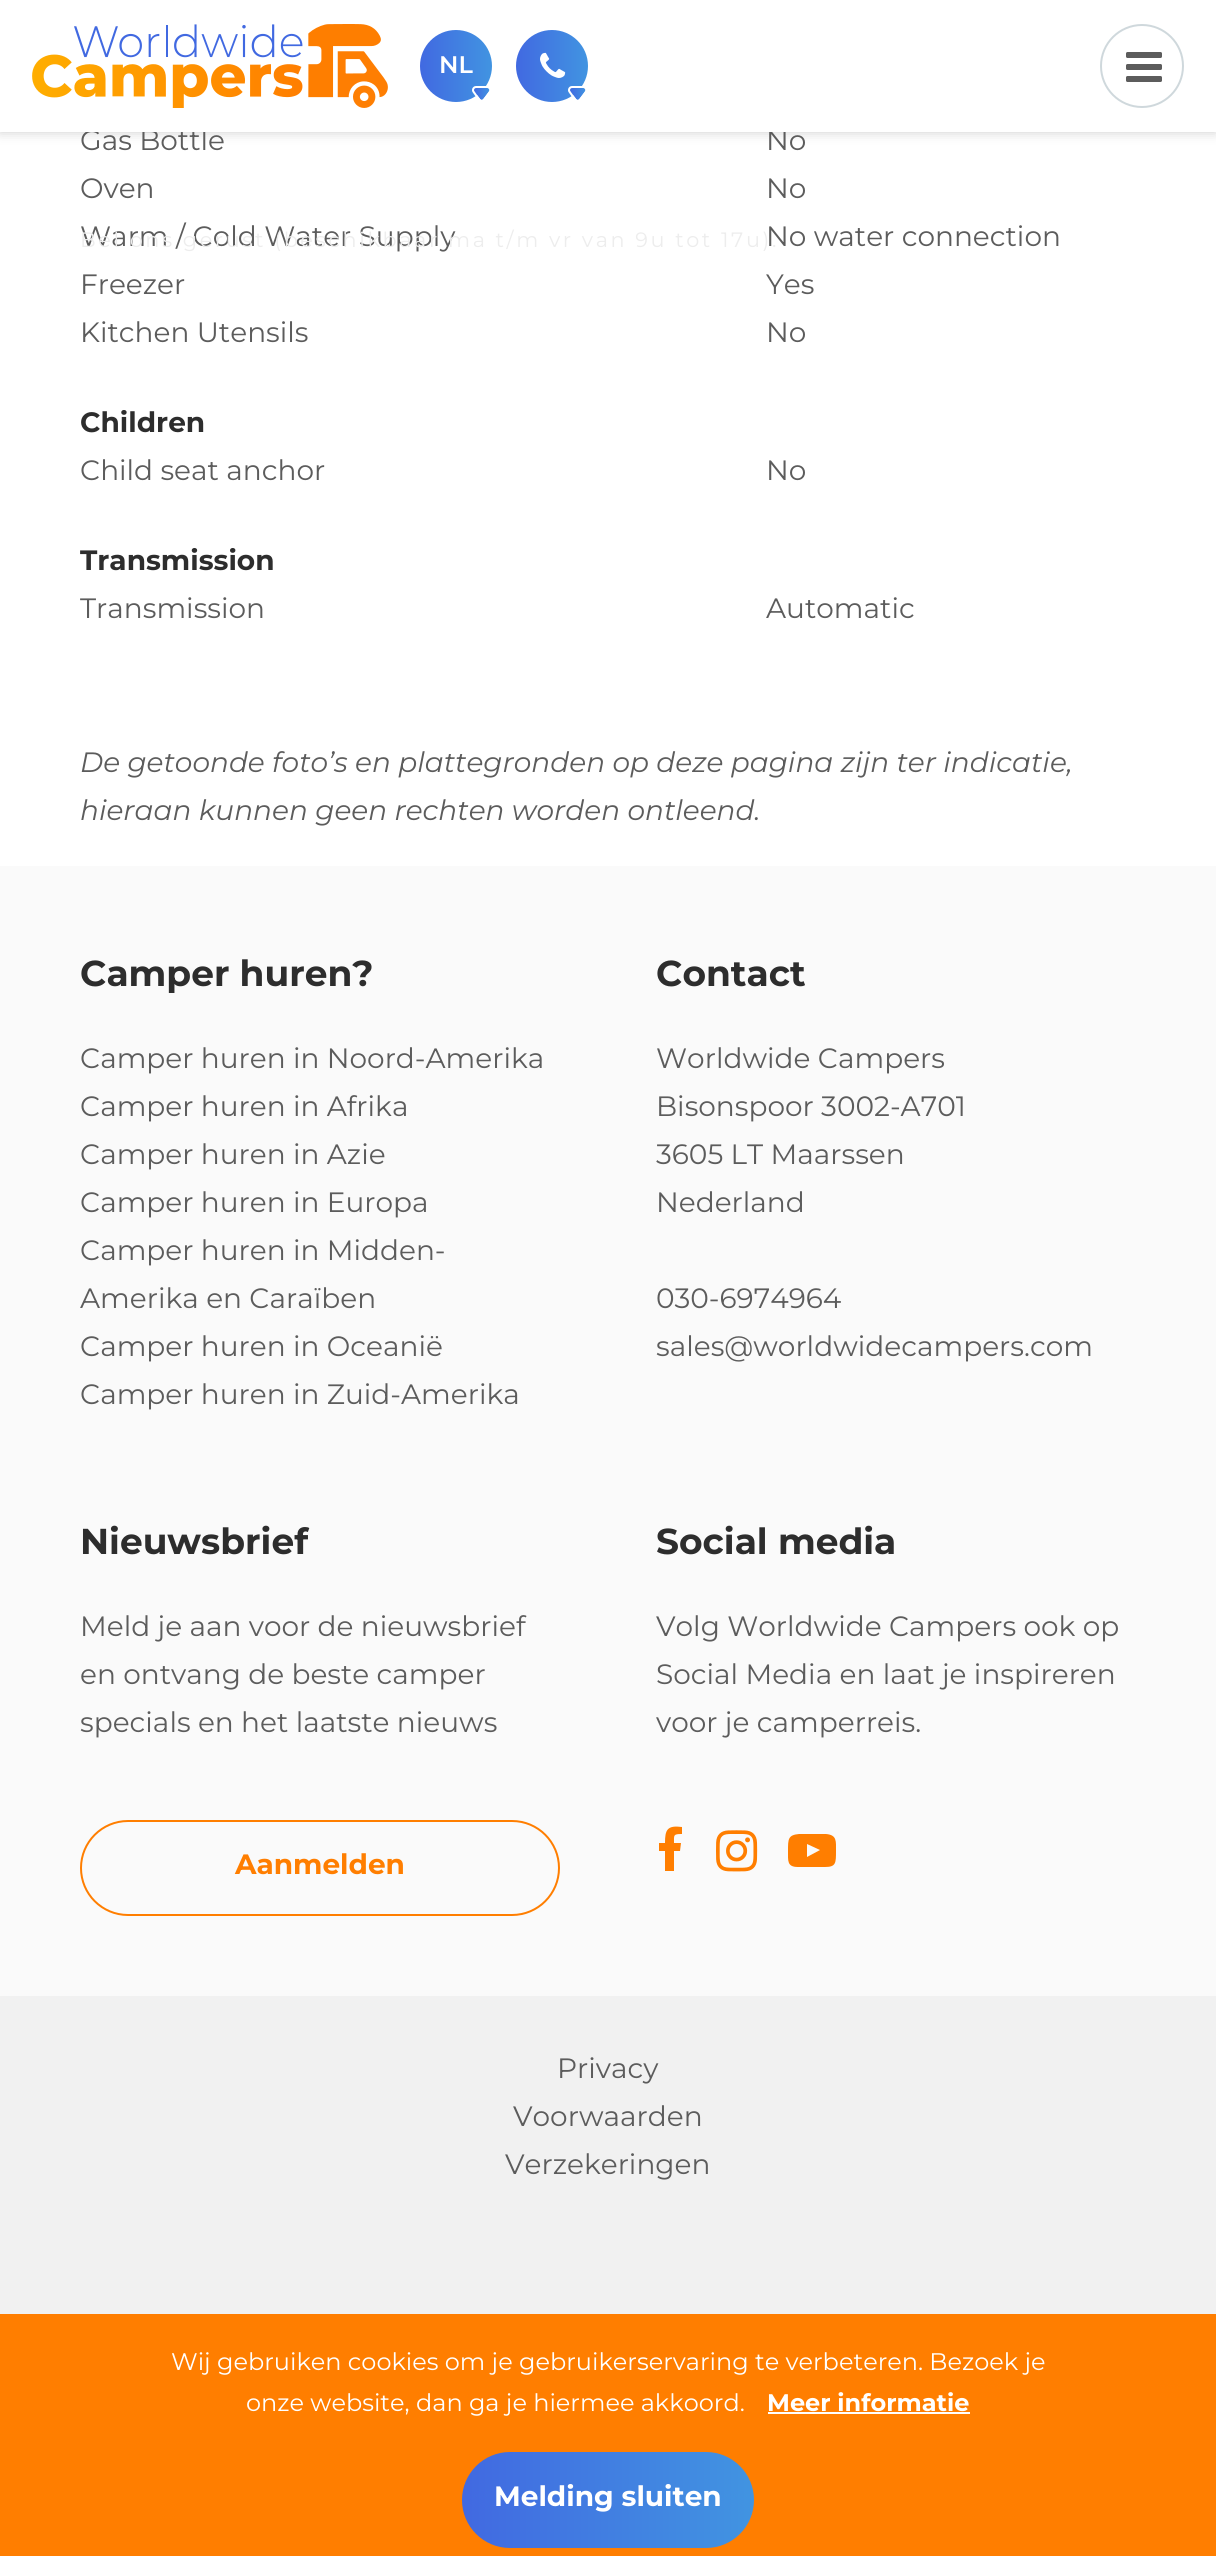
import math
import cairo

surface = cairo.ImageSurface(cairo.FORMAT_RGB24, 1216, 2556)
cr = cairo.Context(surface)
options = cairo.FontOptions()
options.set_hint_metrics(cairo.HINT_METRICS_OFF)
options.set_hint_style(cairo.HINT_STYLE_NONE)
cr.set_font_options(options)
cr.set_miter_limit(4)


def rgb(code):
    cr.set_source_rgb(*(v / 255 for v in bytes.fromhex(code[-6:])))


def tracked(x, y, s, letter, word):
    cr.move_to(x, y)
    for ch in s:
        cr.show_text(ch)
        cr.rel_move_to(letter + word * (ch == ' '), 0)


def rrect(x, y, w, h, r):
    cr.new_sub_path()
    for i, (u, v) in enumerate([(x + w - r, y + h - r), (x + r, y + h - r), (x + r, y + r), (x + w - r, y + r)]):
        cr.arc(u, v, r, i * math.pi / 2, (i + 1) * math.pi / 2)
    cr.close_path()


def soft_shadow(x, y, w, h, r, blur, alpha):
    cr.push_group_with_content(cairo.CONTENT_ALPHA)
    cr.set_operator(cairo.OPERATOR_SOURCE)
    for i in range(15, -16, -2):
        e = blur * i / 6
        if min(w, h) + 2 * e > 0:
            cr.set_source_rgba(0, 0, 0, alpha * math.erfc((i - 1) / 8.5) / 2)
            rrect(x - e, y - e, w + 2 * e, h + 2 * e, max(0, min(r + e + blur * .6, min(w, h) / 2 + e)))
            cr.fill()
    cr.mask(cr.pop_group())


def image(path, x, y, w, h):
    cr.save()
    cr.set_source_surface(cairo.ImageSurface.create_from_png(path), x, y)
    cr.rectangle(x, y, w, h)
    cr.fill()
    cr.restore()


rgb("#ffffff")
cr.paint()
rgb("#000000")
soft_shadow(0, 0, 1216, 132, 0, 6, 0.2)
rgb("#fafafa")
cr.rectangle(0, 866, 1216, 1130)
cr.fill()
rrect(81, 1821, 478, 94, 47)
rgb("#ff7e00")
cr.stroke()
cr.new_path()
cr.move_to(682, 1827)
cr.line_to(682, 1834)
cr.curve_to(673, 1834, 674, 1835, 674, 1843)
cr.line_to(681, 1843)
cr.line_to(680, 1851)
cr.line_to(674, 1851)
cr.line_to(674, 1871)
cr.line_to(665, 1871)
cr.line_to(665, 1851)
cr.line_to(659, 1851)
cr.line_to(659, 1843)
cr.line_to(665, 1843)
cr.curve_to(665, 1830, 667, 1825, 682, 1827)
cr.close_path()
cr.fill()
image("img/5.png", 716, 1830, 42, 42)
cr.new_path()
cr.move_to(807, 1857)
cr.line_to(820, 1850)
cr.line_to(807, 1844)
cr.close_path()
cr.move_to(812, 1834)
cr.line_to(826, 1834)
cr.curve_to(837, 1835, 836, 1841, 836, 1851)
cr.curve_to(836, 1863, 836, 1867, 825, 1867)
cr.line_to(798, 1867)
cr.curve_to(787, 1867, 788, 1861, 788, 1851)
cr.curve_to(788, 1839, 788, 1835, 799, 1834)
cr.close_path()
cr.fill()
for x, y, w, h, color in [
    (0, 1996, 1216, 318, "#f1f1f1"),
    (0, 2314, 1216, 242, "#ff7e00"),
    (768, 2412, 202, 2, "#ffffff"),
]:
    rgb(color)
    cr.rectangle(x, y, w, h)
    cr.fill()
gradient = cairo.LinearGradient(462, 2500, 754, 2500)
gradient.add_color_stop_rgba(0, 0.255, 0.412, 0.882, 1)
gradient.add_color_stop_rgba(1, 0.255, 0.58, 0.882, 1)
cr.set_source(gradient)
rrect(462, 2452, 292, 96, 48)
cr.fill()
cr.select_font_face("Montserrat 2 Thin")
cr.set_font_size(28)
rgb("#5c5c5c")
cr.move_to(80, 150)
cr.show_text("Gas Bottle")
cr.move_to(766, 150)
cr.show_text("No")
rgb("#ffffff")
cr.rectangle(0, 0, 1216, 132)
cr.fill()
gradient = cairo.LinearGradient(516, 66, 588, 66)
gradient.add_color_stop_rgba(0, 0.255, 0.412, 0.882, 1)
gradient.add_color_stop_rgba(1, 0.255, 0.58, 0.882, 1)
cr.set_source(gradient)
cr.arc(552, 66, 36, 0, 2 * math.pi)
cr.fill()
image("img/3.png", 568, 86, 18, 14)
image("img/4.png", 540, 52, 26, 26)
gradient = cairo.LinearGradient(420, 66, 492, 66)
gradient.add_color_stop_rgba(0, 0.255, 0.412, 0.882, 1)
gradient.add_color_stop_rgba(1, 0.255, 0.58, 0.882, 1)
cr.set_source(gradient)
cr.arc(456, 66, 36, 0, 2 * math.pi)
cr.fill()
image("img/3.png", 472, 86, 18, 14)
cr.select_font_face("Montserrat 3 Thin")
cr.set_font_size(24)
rgb("#ffffff")
cr.move_to(439, 73)
cr.show_text("NL")
cr.new_path()
cr.arc(1142, 66, 41, 0, 2 * math.pi)
rgb("#cfd8dc")
cr.stroke()
image("img/2.png", 1126, 52, 36, 30)
image("img/1.png", 32, 24, 356, 84)
cr.select_font_face("Montserrat 2 Thin")
cr.set_font_size(28)
rgb("#5c5c5c")
for x, y, s in [
    (80, 198, "Oven"),
    (766, 198, "No"),
    (80, 246, "Warm / Cold Water Supply"),
    (766, 246, "No water connection"),
]:
    cr.move_to(x, y)
    cr.show_text(s)
cr.set_font_size(20.8)
rgb("#ededed")
tracked(80, 247, "Bel ons gerust (beschikbaar ma t/m vr van 9u tot 17u).", 2.6, 0)
cr.set_font_size(28)
rgb("#5c5c5c")
for x, y, s in [
    (80, 294, "Freezer"),
    (766, 294, "Yes"),
    (80, 342, "Kitchen Utensils"),
    (766, 342, "No"),
]:
    cr.move_to(x, y)
    cr.show_text(s)
cr.select_font_face("Montserrat Thin")
rgb("#2d2d2d")
cr.move_to(80, 432)
cr.show_text("Children")
cr.select_font_face("Montserrat 2 Thin")
rgb("#5c5c5c")
cr.move_to(80, 480)
cr.show_text("Child seat anchor")
cr.move_to(766, 480)
cr.show_text("No")
cr.select_font_face("Montserrat Thin")
rgb("#2d2d2d")
cr.move_to(80, 570)
cr.show_text("Transmission")
cr.select_font_face("Montserrat 2 Thin")
rgb("#5c5c5c")
cr.move_to(80, 618)
cr.show_text("Transmission")
cr.move_to(766, 618)
cr.show_text("Automatic")
cr.select_font_face("Montserrat Thin", cairo.FONT_SLANT_ITALIC)
cr.move_to(80, 772)
cr.show_text("De getoonde foto’s en plattegronden op deze pagina zijn ter indicatie,")
cr.move_to(80, 820)
cr.show_text("hieraan kunnen geen rechten worden ontleend.")
cr.select_font_face("Montserrat Thin")
cr.set_font_size(36)
rgb("#2d2d2d")
cr.move_to(80, 986)
cr.show_text("Camper huren?")
cr.select_font_face("Montserrat 2 Thin")
cr.set_font_size(28)
rgb("#5c5c5c")
for x, y, s in [
    (80, 1068, "Camper huren in Noord-Amerika"),
    (80, 1116, "Camper huren in Afrika"),
    (80, 1164, "Camper huren in Azie"),
    (80, 1212, "Camper huren in Europa"),
    (80, 1260, "Camper huren in Midden-"),
    (80, 1308, "Amerika en Caraïben"),
    (80, 1356, "Camper huren in Oceanië"),
    (80, 1404, "Camper huren in Zuid-Amerika"),
]:
    cr.move_to(x, y)
    cr.show_text(s)
cr.select_font_face("Montserrat Thin")
cr.set_font_size(36)
rgb("#2d2d2d")
cr.move_to(656, 986)
cr.show_text("Contact")
cr.select_font_face("Montserrat 2 Thin")
cr.set_font_size(28)
rgb("#5c5c5c")
for x, y, s in [
    (656, 1068, "Worldwide Campers"),
    (656, 1116, "Bisonspoor 3002-A701"),
    (656, 1164, "3605 LT Maarssen"),
    (656, 1212, "Nederland"),
    (656, 1308, "030-6974964"),
    (656, 1356, "sales@worldwidecampers.com"),
]:
    cr.move_to(x, y)
    cr.show_text(s)
cr.select_font_face("Montserrat Thin")
cr.set_font_size(36)
rgb("#2d2d2d")
cr.move_to(80, 1554)
cr.show_text("Nieuwsbrief")
cr.select_font_face("Montserrat 2 Thin")
cr.set_font_size(28)
rgb("#5c5c5c")
for x, y, s in [
    (80, 1636, "Meld je aan voor de nieuwsbrief"),
    (80, 1684, "en ontvang de beste camper"),
    (80, 1732, "specials en het laatste nieuws"),
]:
    cr.move_to(x, y)
    cr.show_text(s)
cr.select_font_face("Montserrat Thin")
rgb("#ff7e00")
cr.move_to(235, 1874)
cr.show_text("Aanmelden")
cr.set_font_size(36)
rgb("#2d2d2d")
cr.move_to(656, 1554)
cr.show_text("Social media")
cr.select_font_face("Montserrat 2 Thin")
cr.set_font_size(28)
rgb("#5c5c5c")
for x, y, s in [
    (656, 1636, "Volg Worldwide Campers ook op"),
    (656, 1684, "Social Media en laat je inspireren"),
    (656, 1732, "voor je camperreis."),
    (557, 2078, "Privacy"),
    (513, 2126, "Voorwaarden"),
    (505, 2174, "Verzekeringen"),
]:
    cr.move_to(x, y)
    cr.show_text(s)
cr.set_font_size(24)
rgb("#ffffff")
cr.move_to(171, 2370)
cr.show_text("Wij gebruiken cookies om je gebruikerservaring te verbeteren. Bezoek je")
cr.move_to(246, 2411)
cr.show_text("onze website, dan ga je hiermee akkoord.")
cr.select_font_face("Montserrat Thin")
cr.move_to(767, 2411)
cr.show_text("Meer informatie")
cr.set_font_size(28)
cr.move_to(494, 2506)
cr.show_text("Melding sluiten")
surface.write_to_png("page.png")
